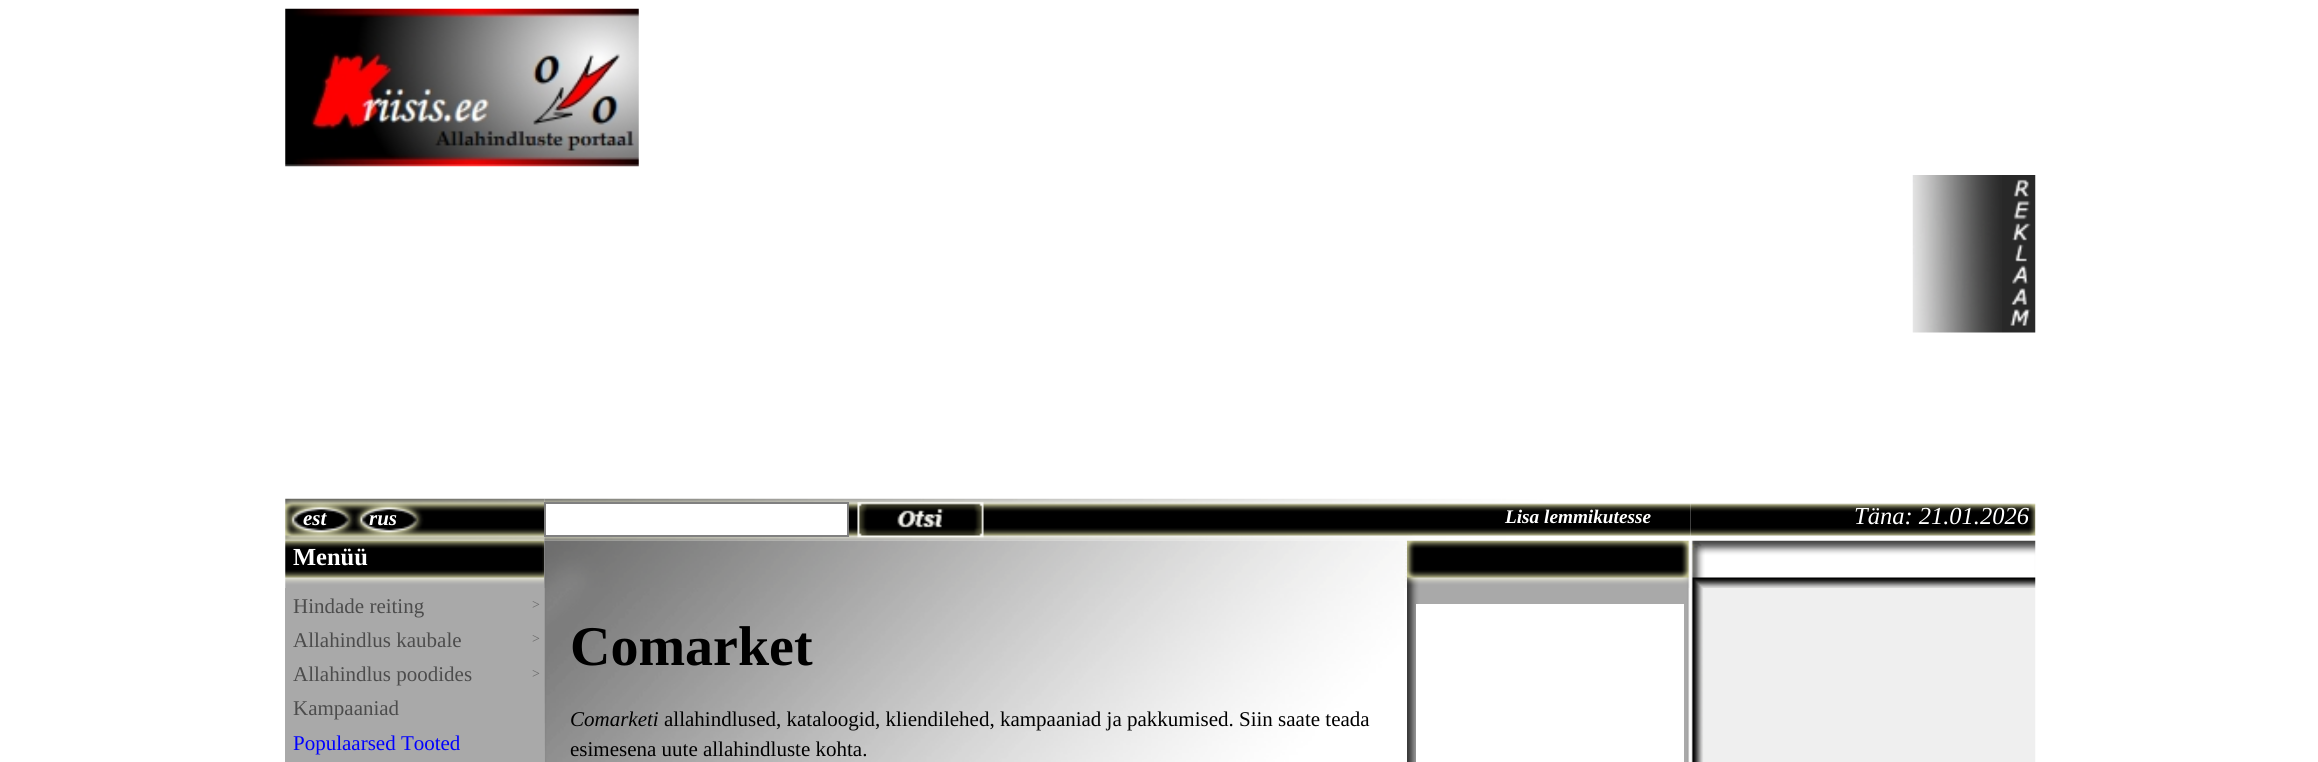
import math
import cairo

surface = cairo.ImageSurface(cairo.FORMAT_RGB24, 2318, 762)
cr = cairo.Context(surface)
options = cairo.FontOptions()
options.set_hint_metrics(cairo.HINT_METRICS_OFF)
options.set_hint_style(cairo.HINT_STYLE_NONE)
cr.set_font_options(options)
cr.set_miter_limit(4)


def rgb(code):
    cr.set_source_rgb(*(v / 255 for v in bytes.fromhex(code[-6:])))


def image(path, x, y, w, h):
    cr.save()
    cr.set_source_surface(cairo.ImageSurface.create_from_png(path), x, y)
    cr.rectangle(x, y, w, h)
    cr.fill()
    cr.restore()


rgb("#ffffff")
cr.paint()
image("img/1.png", 285, 8, 354, 159)
image("img/2.png", 1912, 175, 90, 158)
image("img/3.png", 2002, 175, 34, 158)
image("img/4.png", 285, 498, 260, 43)
image("img/5.png", 544, 498, 1147, 43)
rgb("#ffffff")
cr.rectangle(545, 503, 303, 33)
cr.fill_preserve()
rgb("#808080")
cr.stroke()
image("img/6.png", 857, 502, 127, 36)
image("img/7.png", 1690, 503, 346, 33)
image("img/8.png", 285, 540, 260, 48)
image("img/9.png", 544, 540, 863, 48)
image("img/10.png", 1407, 540, 283, 48)
image("img/11.png", 1690, 540, 346, 48)
rgb("#a9a9a9")
cr.rectangle(285, 588, 259, 174)
cr.fill()
image("img/12.png", 544, 588, 860, 174)
image("img/13.png", 1407, 588, 283, 174)
rgb("#ffffff")
cr.rectangle(1416, 604, 268, 158)
cr.fill()
image("img/14.png", 1691, 588, 345, 174)
cr.select_font_face("Liberation Serif", cairo.FONT_SLANT_ITALIC, cairo.FONT_WEIGHT_BOLD)
cr.set_font_size(21)
cr.move_to(303, 525)
cr.show_text("est")
cr.move_to(369, 525)
cr.show_text("rus")
cr.set_font_size(19.25)
cr.move_to(1505, 523)
cr.show_text("Lisa lemmikutesse")
cr.select_font_face("Liberation Serif", cairo.FONT_SLANT_ITALIC)
cr.set_font_size(24.5)
cr.move_to(1854, 524)
cr.show_text("Täna: 21.01.2026")
cr.select_font_face("Liberation Serif", cairo.FONT_SLANT_NORMAL, cairo.FONT_WEIGHT_BOLD)
cr.move_to(293, 565)
cr.show_text("Menüü")
cr.select_font_face("Liberation Serif")
cr.set_font_size(21)
rgb("#4c4c4c")
cr.move_to(293, 613)
cr.show_text("Hindade reiting")
cr.set_font_size(14)
rgb("#666666")
cr.move_to(532, 609)
cr.show_text(">")
cr.set_font_size(21)
rgb("#4c4c4c")
cr.move_to(293, 647)
cr.show_text("Allahindlus kaubale")
cr.set_font_size(14)
rgb("#666666")
cr.move_to(532, 643)
cr.show_text(">")
cr.set_font_size(21)
rgb("#4c4c4c")
cr.move_to(293, 681)
cr.show_text("Allahindlus poodides")
cr.set_font_size(14)
rgb("#666666")
cr.move_to(532, 678)
cr.show_text(">")
cr.set_font_size(21)
rgb("#4c4c4c")
cr.move_to(293, 715)
cr.show_text("Kampaaniad")
rgb("#0000ff")
cr.move_to(293, 750)
cr.show_text("Populaarsed Tooted")
cr.select_font_face("Liberation Serif", cairo.FONT_SLANT_NORMAL, cairo.FONT_WEIGHT_BOLD)
cr.set_font_size(56)
rgb("#000000")
cr.move_to(570, 665)
cr.show_text("Comarket")
cr.select_font_face("Liberation Serif", cairo.FONT_SLANT_ITALIC)
cr.set_font_size(21)
cr.move_to(570, 726)
cr.show_text("Comarketi")
cr.select_font_face("Liberation Serif")
cr.move_to(664, 726)
cr.show_text("allahindlused, kataloogid, kliendilehed, kampaaniad ja pakkumised. Siin saate teada")
cr.move_to(570, 756)
cr.show_text("esimesena uute allahindluste kohta.")
surface.write_to_png("page.png")
